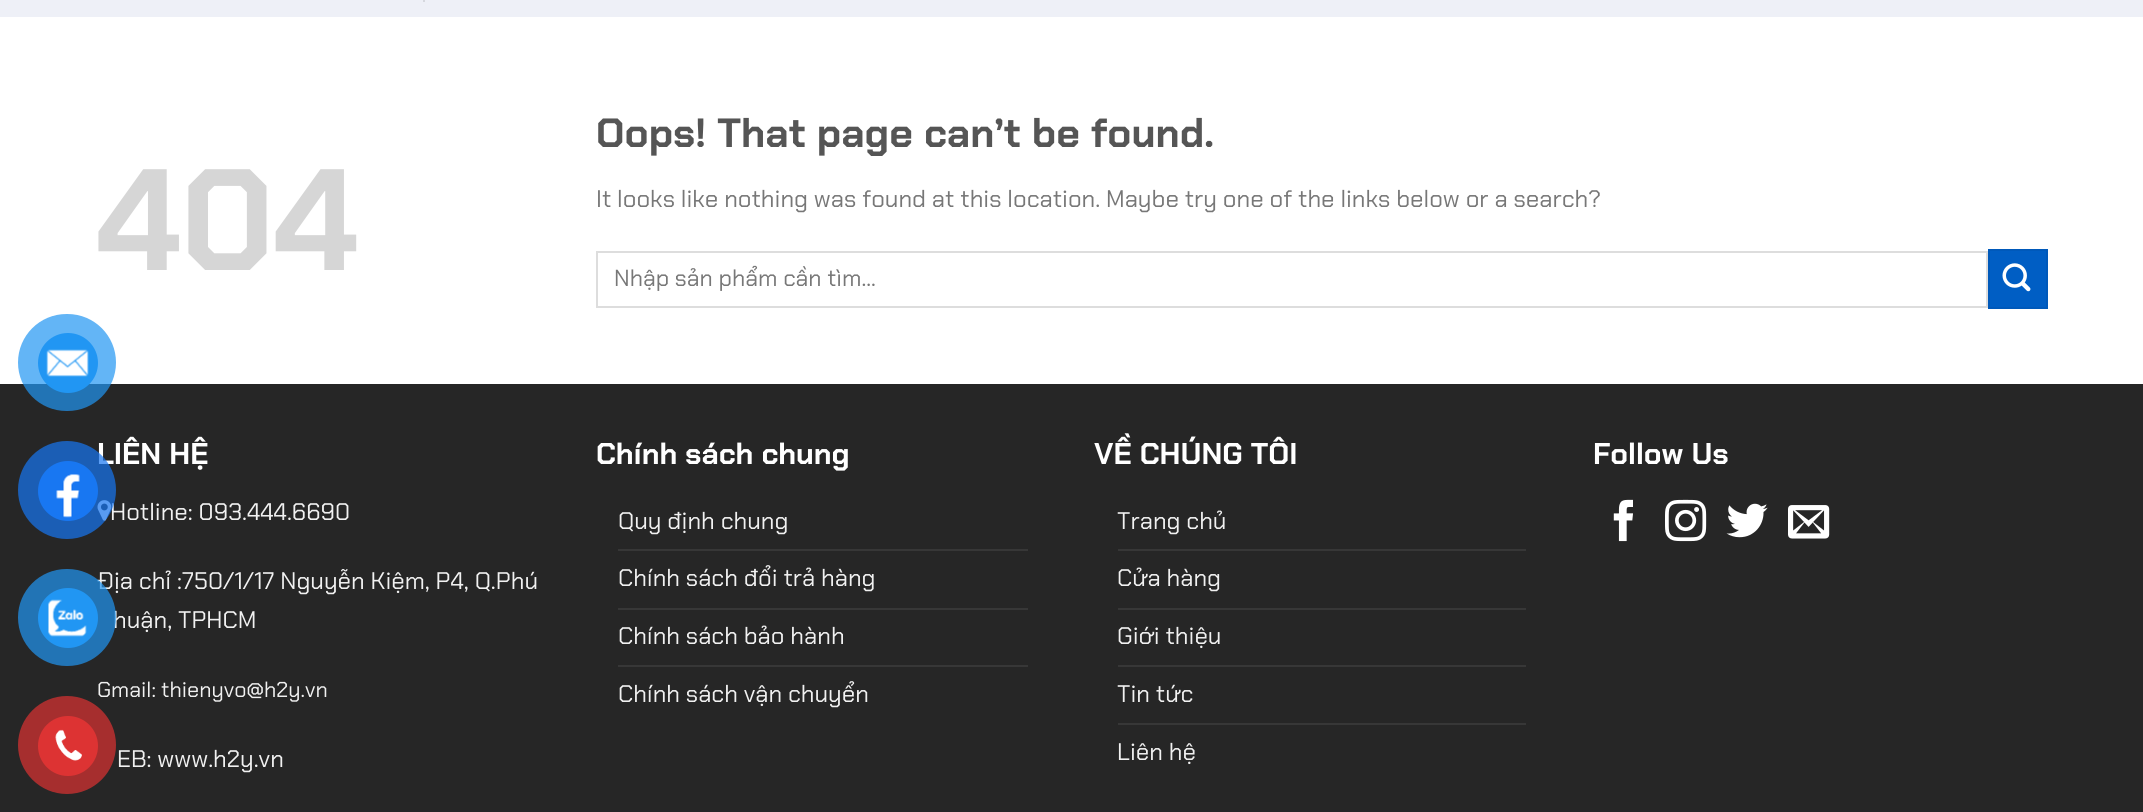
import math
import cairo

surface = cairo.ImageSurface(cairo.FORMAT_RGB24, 2143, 812)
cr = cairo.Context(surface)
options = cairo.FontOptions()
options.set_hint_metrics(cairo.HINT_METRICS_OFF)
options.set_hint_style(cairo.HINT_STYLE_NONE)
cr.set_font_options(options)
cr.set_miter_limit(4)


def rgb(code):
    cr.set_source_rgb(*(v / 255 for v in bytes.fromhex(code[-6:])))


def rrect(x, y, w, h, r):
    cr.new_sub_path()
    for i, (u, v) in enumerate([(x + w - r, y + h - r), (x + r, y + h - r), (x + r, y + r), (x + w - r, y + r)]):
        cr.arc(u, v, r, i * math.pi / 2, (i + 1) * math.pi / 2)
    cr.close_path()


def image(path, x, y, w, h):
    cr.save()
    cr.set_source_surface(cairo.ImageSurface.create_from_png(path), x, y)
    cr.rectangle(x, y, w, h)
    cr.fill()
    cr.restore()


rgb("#ffffff")
cr.paint()
rgb("#262626")
cr.rectangle(0, 384, 2143, 428)
cr.fill()
cr.set_source_rgba(0.129, 0.588, 0.953, 0.7)
rrect(18, 314, 98, 97, 48.5)
cr.fill()
rgb("#2196f3")
cr.arc(68, 363, 30, 0, 2 * math.pi)
cr.fill()
image("img/1.png", 46, 349, 43, 28)
rgb("#eef0f7")
cr.rectangle(0, 0, 2143, 17)
cr.fill()
rgb("#d6d8de")
cr.rectangle(423, 0, 2, 2)
cr.fill()
cr.rectangle(597, 252, 1390, 55)
rgb("#dddddd")
cr.stroke()
rgb("#005ec4")
cr.rectangle(1989, 250, 58, 58)
cr.fill_preserve()
rgb("#0059ba")
cr.stroke()
image("img/5.png", 2002, 263, 29, 29)
image("img/6.png", 97, 500, 15, 21)
for x, y, w, h, color in [
    (618, 549, 410, 2, "#373737"),
    (618, 608, 410, 2, "#373737"),
    (618, 665, 410, 2, "#373737"),
    (1118, 549, 408, 2, "#373737"),
    (1118, 608, 408, 2, "#373737"),
    (1118, 665, 408, 2, "#373737"),
    (1118, 723, 408, 2, "#373737"),
]:
    rgb(color)
    cr.rectangle(x, y, w, h)
    cr.fill()
image("img/7.png", 1613, 499, 20, 43)
image("img/8.png", 1665, 499, 42, 43)
image("img/9.png", 1726, 503, 42, 35)
image("img/10.png", 1788, 505, 42, 34)
cr.select_font_face("Chakra Petch", cairo.FONT_SLANT_NORMAL, cairo.FONT_WEIGHT_BOLD)
cr.set_font_size(144)
rgb("#d6d6d6")
cr.move_to(97, 270)
cr.show_text("404")
cr.set_font_size(40.75)
rgb("#555555")
cr.move_to(596, 147)
cr.show_text("Oops! That page can’t be found.")
cr.select_font_face("Chakra Petch")
cr.set_font_size(24)
rgb("#777777")
cr.move_to(596, 207)
cr.show_text("It looks like nothing was found at this location. Maybe try one of the links below or a search?")
cr.set_font_size(23.25)
cr.move_to(614, 286)
cr.show_text("Nhập sản phẩm cần tìm...")
cr.select_font_face("Chakra Petch", cairo.FONT_SLANT_NORMAL, cairo.FONT_WEIGHT_BOLD)
cr.set_font_size(30)
rgb("#ffffff")
cr.move_to(97, 464)
cr.show_text("LIÊN HỆ")
cr.select_font_face("Chakra Petch")
cr.set_font_size(24)
rgb("#f1f1f1")
cr.move_to(110, 520)
cr.show_text("Hotline: 093.444.6690")
cr.set_source_rgba(0.094, 0.467, 0.949, 0.7)
cr.new_path()
cr.arc(67, 490, 49, 0, 2 * math.pi)
cr.fill()
rgb("#1877f2")
cr.arc(68, 491, 30, 0, 2 * math.pi)
cr.fill()
image("img/2.png", 56, 474, 24, 44)
rgb("#f1f1f1")
cr.move_to(97, 589)
cr.show_text("Địa chỉ :750/1/17 Nguyễn Kiệm, P4, Q.Phú")
cr.move_to(113, 628)
cr.show_text("huận, TPHCM")
cr.set_source_rgba(0.129, 0.588, 0.953, 0.7)
rrect(18, 569, 98, 97, 48.5)
cr.fill()
rgb("#2196f3")
cr.arc(68, 618, 30, 0, 2 * math.pi)
cr.fill()
image("img/3.png", 48, 599, 39, 38)
cr.set_font_size(21.6)
rgb("#f1f1f1")
cr.move_to(97, 697)
cr.show_text("Gmail: thienyvo@h2y.vn")
cr.set_source_rgba(0.867, 0.2, 0.2, 0.7)
cr.new_path()
cr.arc(67, 745, 49, 0, 2 * math.pi)
cr.fill()
rgb("#dd3333")
cr.arc(68, 746, 30, 0, 2 * math.pi)
cr.fill()
image("img/4.png", 55, 729, 27, 32)
cr.set_font_size(24)
rgb("#f1f1f1")
cr.move_to(117, 767)
cr.show_text("EB: www.h2y.vn")
cr.select_font_face("Chakra Petch", cairo.FONT_SLANT_NORMAL, cairo.FONT_WEIGHT_BOLD)
cr.set_font_size(30)
rgb("#ffffff")
cr.move_to(596, 464)
cr.show_text("Chính sách chung")
cr.select_font_face("Chakra Petch")
cr.set_font_size(24)
rgb("#f1f1f1")
for x, y, s in [
    (618, 529, "Quy định chung"),
    (618, 586, "Chính sách đổi trả hàng"),
    (618, 644, "Chính sách bảo hành"),
    (618, 702, "Chính sách vận chuyển"),
]:
    cr.move_to(x, y)
    cr.show_text(s)
cr.select_font_face("Chakra Petch", cairo.FONT_SLANT_NORMAL, cairo.FONT_WEIGHT_BOLD)
cr.set_font_size(30)
rgb("#ffffff")
cr.move_to(1094, 464)
cr.show_text("VỀ CHÚNG TÔI")
cr.select_font_face("Chakra Petch")
cr.set_font_size(24)
rgb("#f1f1f1")
for x, y, s in [
    (1117, 529, "Trang chủ"),
    (1117, 586, "Cửa hàng"),
    (1117, 644, "Giới thiệu"),
    (1117, 702, "Tin tức"),
    (1117, 760, "Liên hệ"),
]:
    cr.move_to(x, y)
    cr.show_text(s)
cr.select_font_face("Chakra Petch", cairo.FONT_SLANT_NORMAL, cairo.FONT_WEIGHT_BOLD)
cr.set_font_size(30)
rgb("#ffffff")
cr.move_to(1593, 464)
cr.show_text("Follow Us")
surface.write_to_png("page.png")
